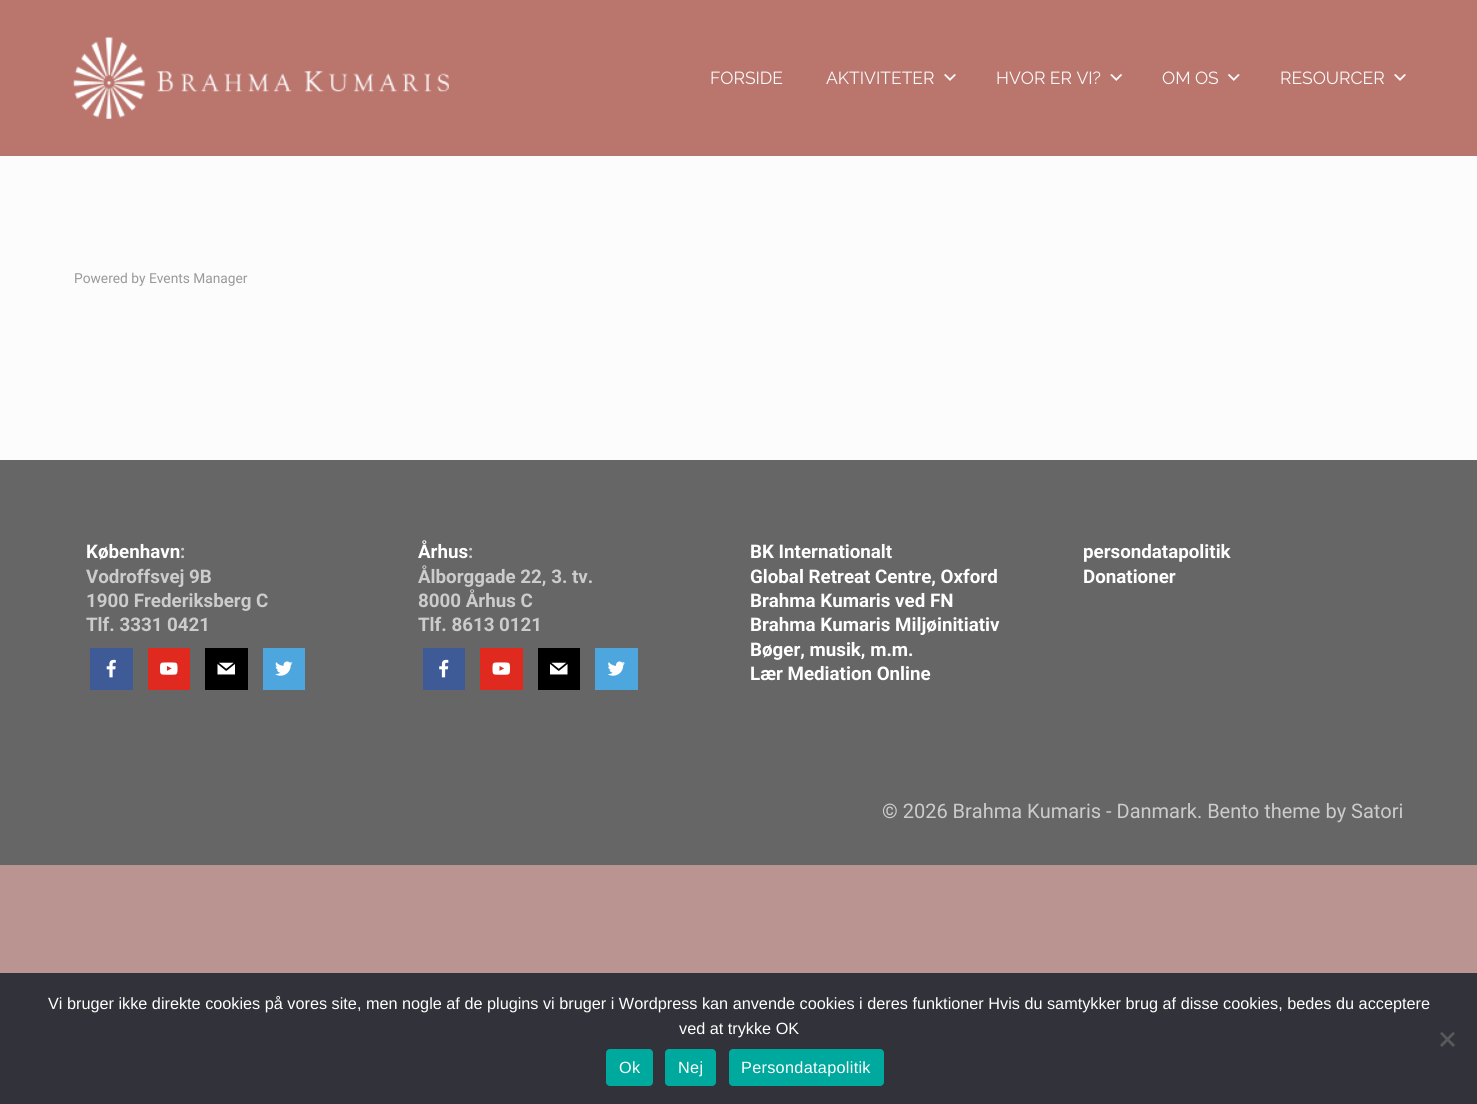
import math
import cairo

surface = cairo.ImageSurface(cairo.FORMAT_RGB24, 1477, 1104)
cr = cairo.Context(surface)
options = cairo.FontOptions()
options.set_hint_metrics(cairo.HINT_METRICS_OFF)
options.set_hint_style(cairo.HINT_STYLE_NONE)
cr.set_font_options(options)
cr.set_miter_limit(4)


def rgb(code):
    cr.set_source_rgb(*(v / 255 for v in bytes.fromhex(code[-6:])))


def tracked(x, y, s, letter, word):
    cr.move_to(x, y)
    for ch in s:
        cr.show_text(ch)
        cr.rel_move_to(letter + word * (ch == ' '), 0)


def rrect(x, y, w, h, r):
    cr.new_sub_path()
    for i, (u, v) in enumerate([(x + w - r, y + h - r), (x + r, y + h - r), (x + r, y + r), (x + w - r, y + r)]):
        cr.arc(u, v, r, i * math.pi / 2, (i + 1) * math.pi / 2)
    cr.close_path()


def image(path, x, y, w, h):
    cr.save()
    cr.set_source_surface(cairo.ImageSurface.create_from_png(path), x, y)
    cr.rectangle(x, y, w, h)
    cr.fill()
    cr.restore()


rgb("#ba9491")
cr.paint()
rgb("#ba756d")
cr.rectangle(0, 0, 1477, 156)
cr.fill()
image("img/1.png", 73, 37, 376, 82)
image("img/2.png", 944, 74, 12, 7)
image("img/3.png", 1110, 74, 13, 7)
image("img/4.png", 1227, 74, 13, 7)
image("img/2.png", 1394, 74, 12, 7)
for x, y, w, h, color in [
    (0, 156, 1477, 304, "#fcfcfc"),
    (0, 460, 1477, 405, "#666666"),
    (90, 648, 43, 42, "#3e5b98"),
]:
    rgb(color)
    cr.rectangle(x, y, w, h)
    cr.fill()
image("img/5.png", 106, 659, 10, 19)
rgb("#e02a20")
cr.rectangle(148, 648, 42, 42)
cr.fill()
image("img/6.png", 160, 662, 18, 13)
rgb("#000000")
cr.rectangle(205, 648, 43, 42)
cr.fill()
image("img/7.png", 217, 662, 18, 13)
rgb("#4da7de")
cr.rectangle(263, 648, 42, 42)
cr.fill()
image("img/8.png", 275, 661, 18, 15)
rgb("#3e5b98")
cr.rectangle(423, 648, 42, 42)
cr.fill()
image("img/9.png", 439, 659, 10, 19)
rgb("#e02a20")
cr.rectangle(480, 648, 43, 42)
cr.fill()
image("img/10.png", 492, 662, 18, 13)
rgb("#000000")
cr.rectangle(538, 648, 42, 42)
cr.fill()
image("img/11.png", 550, 662, 18, 13)
rgb("#4da7de")
cr.rectangle(595, 648, 43, 42)
cr.fill()
image("img/12.png", 607, 661, 18, 15)
rgb("#32323a")
cr.rectangle(0, 973, 1477, 131)
cr.fill()
rgb("#59595d")
cr.new_path()
cr.move_to(1453, 1032)
cr.line_to(1455, 1033.5)
cr.line_to(1442, 1047)
cr.line_to(1440, 1045)
cr.close_path()
cr.fill()
cr.new_path()
cr.move_to(1440, 1033.5)
cr.line_to(1442, 1032)
cr.line_to(1455, 1045)
cr.line_to(1453, 1047)
cr.close_path()
cr.fill()
rgb("#00a99d")
rrect(606, 1049, 47, 37, 4)
cr.fill()
rrect(665, 1049, 51, 37, 4)
cr.fill()
rrect(729, 1049, 155, 37, 4)
cr.fill()
cr.select_font_face("Raleway")
cr.set_font_size(17.5)
rgb("#f9f9f9")
for x, y, s in [
    (710, 84, "FORSIDE"),
    (826, 84, "AKTIVITETER"),
    (996, 84, "HVOR ER VI?"),
    (1162, 84, "OM OS"),
    (1280, 84, "RESOURCER"),
]:
    cr.move_to(x, y)
    cr.show_text(s)
cr.select_font_face("Roboto")
cr.set_font_size(13.75)
rgb("#999999")
cr.move_to(74, 283)
cr.show_text("Powered by Events Manager")
cr.select_font_face("Roboto", cairo.FONT_SLANT_NORMAL, cairo.FONT_WEIGHT_BOLD)
cr.set_font_size(18.75)
rgb("#ffffff")
cr.move_to(86, 558)
cr.show_text("København")
rgb("#cccccc")
for x, y, s in [
    (180, 558, ":"),
    (86, 583, "Vodroffsvej 9B"),
    (86, 607, "1900 Frederiksberg C"),
    (86, 631, "Tlf. 3331 0421"),
]:
    cr.move_to(x, y)
    cr.show_text(s)
rgb("#ffffff")
cr.move_to(418, 558)
cr.show_text("Århus")
rgb("#cccccc")
for x, y, s in [
    (468, 558, ":"),
    (418, 583, "Ålborggade 22, 3. tv."),
    (418, 607, "8000 Århus C"),
    (418, 631, "Tlf. 8613 0121"),
]:
    cr.move_to(x, y)
    cr.show_text(s)
rgb("#ffffff")
for x, y, s in [
    (750, 558, "BK Internationalt"),
    (750, 583, "Global Retreat Centre, Oxford"),
    (750, 607, "Brahma Kumaris ved FN"),
    (750, 631, "Brahma Kumaris Miljøinitiativ"),
    (750, 656, "Bøger, musik, m.m."),
    (750, 680, "Lær Mediation Online"),
    (1083, 558, "persondatapolitik"),
    (1083, 583, "Donationer"),
]:
    cr.move_to(x, y)
    cr.show_text(s)
cr.select_font_face("Roboto")
cr.set_font_size(20)
rgb("#cccccc")
cr.move_to(882, 818)
cr.show_text("© 2026 Brahma Kumaris - Danmark. Bento theme by Satori")
cr.select_font_face("Liberation Sans")
cr.set_font_size(16.25)
rgb("#ffffff")
cr.move_to(48, 1009)
cr.show_text("Vi bruger ikke direkte cookies på vores site, men nogle af de plugins vi bruger i Wordpress kan anvende cookies i deres funktioner Hvis du samtykker brug af disse cookies, bedes du acceptere")
cr.move_to(679, 1034)
cr.show_text("ved at trykke OK")
for x, y, s in [
    (619, 1073, "Ok"),
    (678, 1073, "Nej"),
    (741, 1073, "Persondatapolitik"),
]:
    tracked(x, y, s, 0.3, 0)
surface.write_to_png("page.png")
